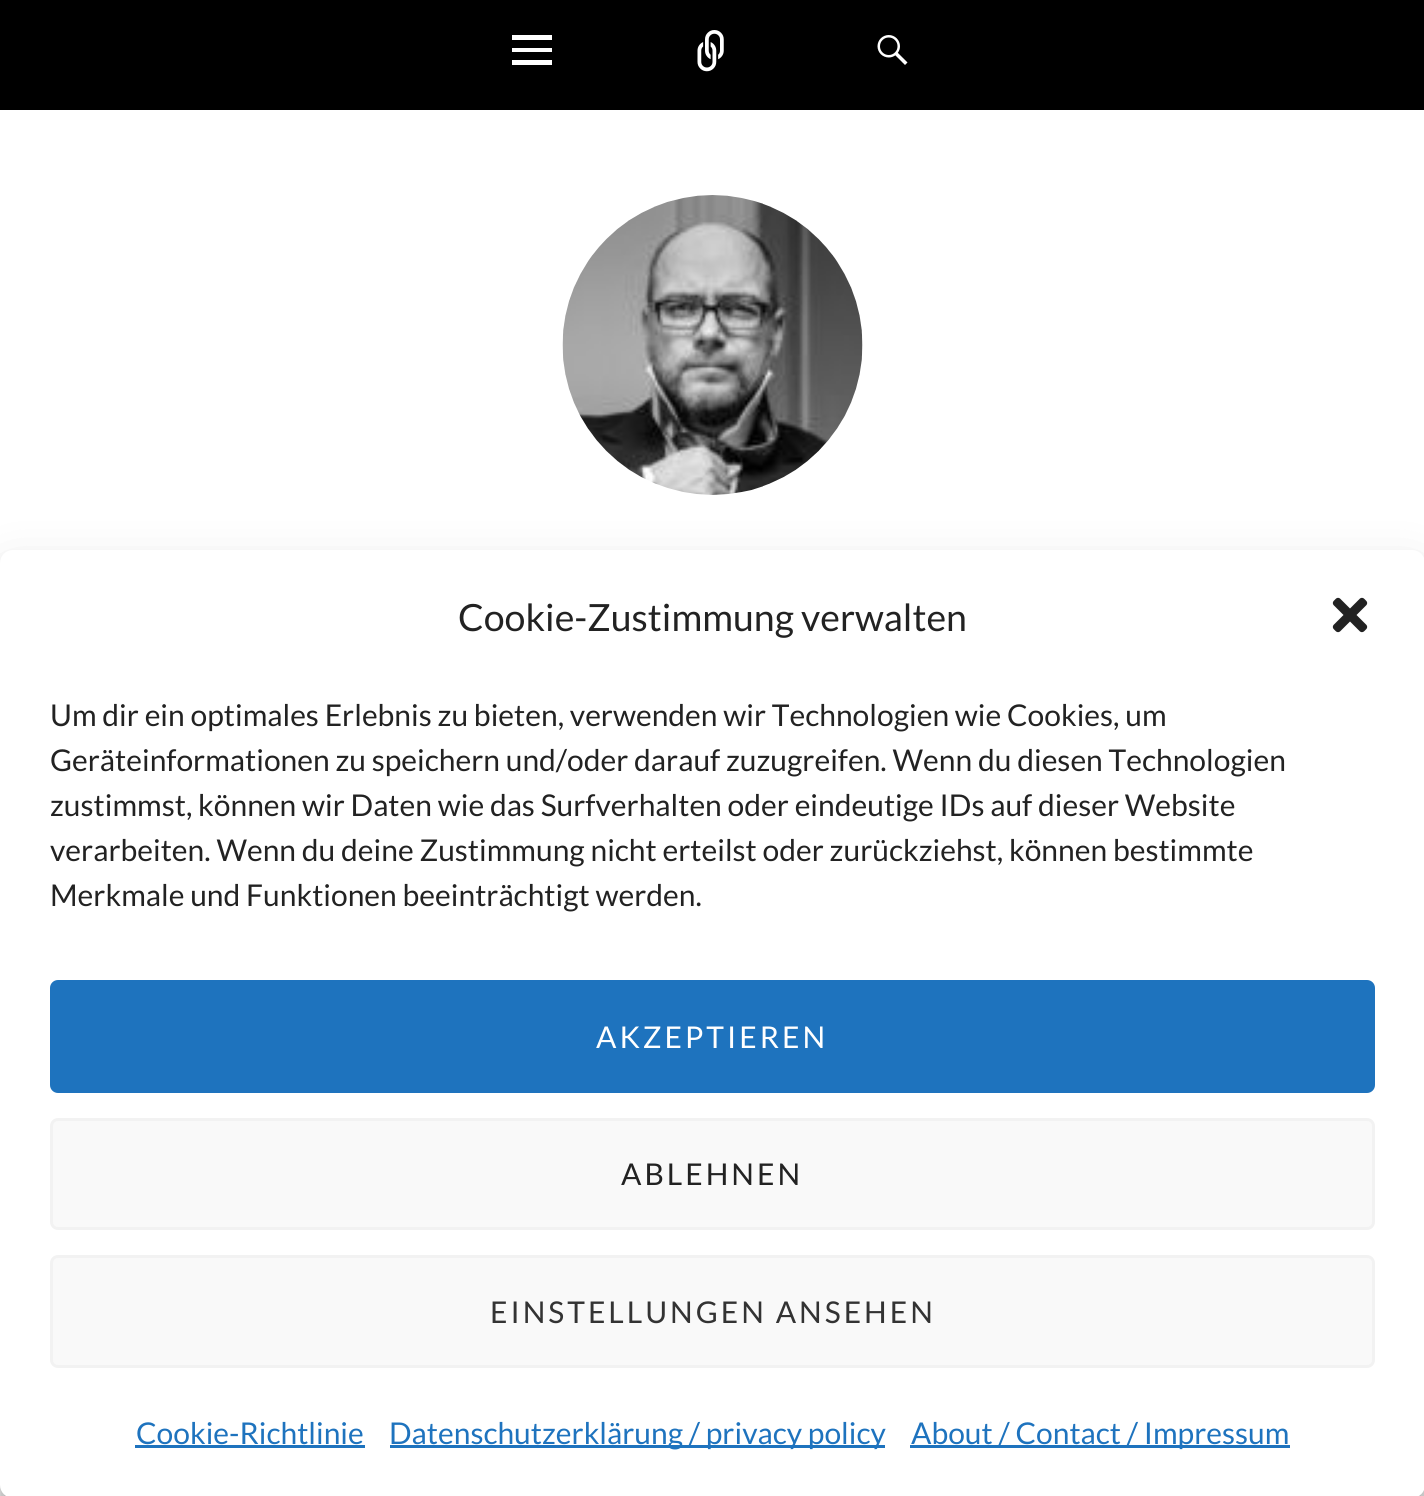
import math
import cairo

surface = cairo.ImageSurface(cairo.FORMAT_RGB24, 1424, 1496)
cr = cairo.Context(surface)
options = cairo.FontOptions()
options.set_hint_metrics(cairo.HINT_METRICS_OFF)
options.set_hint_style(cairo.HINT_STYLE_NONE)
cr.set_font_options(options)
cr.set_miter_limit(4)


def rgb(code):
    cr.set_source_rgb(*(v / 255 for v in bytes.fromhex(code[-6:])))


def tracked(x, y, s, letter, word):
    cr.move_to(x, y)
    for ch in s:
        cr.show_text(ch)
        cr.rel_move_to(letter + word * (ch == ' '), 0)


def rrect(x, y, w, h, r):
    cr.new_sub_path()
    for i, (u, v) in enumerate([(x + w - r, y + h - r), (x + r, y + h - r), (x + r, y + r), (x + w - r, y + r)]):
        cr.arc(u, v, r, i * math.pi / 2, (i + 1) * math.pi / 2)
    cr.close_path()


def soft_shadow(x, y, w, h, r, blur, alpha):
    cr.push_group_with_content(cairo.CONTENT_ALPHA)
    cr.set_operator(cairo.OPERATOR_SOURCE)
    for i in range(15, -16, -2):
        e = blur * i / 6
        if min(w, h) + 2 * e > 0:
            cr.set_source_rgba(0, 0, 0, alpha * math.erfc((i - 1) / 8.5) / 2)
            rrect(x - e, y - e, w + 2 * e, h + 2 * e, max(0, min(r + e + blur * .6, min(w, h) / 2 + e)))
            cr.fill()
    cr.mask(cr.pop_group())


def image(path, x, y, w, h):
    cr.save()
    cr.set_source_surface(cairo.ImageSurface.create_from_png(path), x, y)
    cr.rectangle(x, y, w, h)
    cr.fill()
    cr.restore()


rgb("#ffffff")
cr.paint()
rgb("#000000")
cr.rectangle(0, 0, 1424, 110)
cr.fill()
rgb("#ffffff")
cr.new_path()
cr.move_to(512, 65)
cr.line_to(512, 60)
cr.line_to(552, 60)
cr.line_to(552, 65)
cr.close_path()
cr.move_to(512, 52)
cr.line_to(512, 48)
cr.line_to(552, 48)
cr.line_to(552, 52)
cr.close_path()
cr.move_to(512, 40)
cr.line_to(512, 35)
cr.line_to(552, 35)
cr.line_to(552, 40)
cr.close_path()
cr.fill()
image("img/1.png", 697, 30, 27, 42)
image("img/2.png", 877, 35, 31, 30)
image("img/3.png", 562, 195, 301, 300)
rgb("#000000")
soft_shadow(0, 565, 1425, 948, 13, 7.5, 0.23)
soft_shadow(0, 575, 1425, 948, 13, 25, 0.19)
rgb("#ffffff")
rrect(0, 550, 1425, 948, 13)
cr.fill()
image("img/4.png", 1332, 597, 36, 36)
rgb("#1e73be")
rrect(51.5, 981.5, 1322, 110, 6.5)
cr.fill_preserve()
cr.set_line_width(3)
cr.stroke()
rgb("#f9f9f9")
rrect(51.5, 1119.5, 1322, 109, 6.5)
cr.fill_preserve()
rgb("#f2f2f2")
cr.stroke()
rgb("#f9f9f9")
rrect(51.5, 1256.5, 1322, 110, 6.5)
cr.fill_preserve()
rgb("#f2f2f2")
cr.stroke()
for x, y, w, h, color in [
    (135, 1445, 230, 3, "#1e73be"),
    (390, 1445, 495, 3, "#1e73be"),
    (910, 1445, 380, 3, "#1e73be"),
]:
    rgb(color)
    cr.rectangle(x, y, w, h)
    cr.fill()
cr.select_font_face("Lato")
cr.set_font_size(37.5)
rgb("#222222")
cr.move_to(458, 631)
cr.show_text("Cookie-Zustimmung verwalten")
cr.set_font_size(30)
for x, y, s in [
    (50, 726, "Um dir ein optimales Erlebnis zu bieten, verwenden wir Technologien wie Cookies, um"),
    (50, 771, "Geräteinformationen zu speichern und/oder darauf zuzugreifen. Wenn du diesen Technologien"),
    (50, 816, "zustimmst, können wir Daten wie das Surfverhalten oder eindeutige IDs auf dieser Website"),
    (50, 861, "verarbeiten. Wenn du deine Zustimmung nicht erteilst oder zurückziehst, können bestimmte"),
    (50, 906, "Merkmale und Funktionen beeinträchtigt werden."),
]:
    cr.move_to(x, y)
    cr.show_text(s)
rgb("#ffffff")
tracked(596, 1048, "AKZEPTIEREN", 3, 0)
rgb("#222222")
tracked(621, 1185, "ABLEHNEN", 3, 0)
rgb("#333333")
tracked(490, 1323, "EINSTELLUNGEN ANSEHEN", 3, 0)
rgb("#1e73be")
for x, y, s in [
    (136, 1444, "Cookie-Richtlinie"),
    (389, 1444, "Datenschutzerklärung / privacy policy"),
    (911, 1444, "About / Contact / Impressum"),
]:
    cr.move_to(x, y)
    cr.show_text(s)
surface.write_to_png("page.png")
